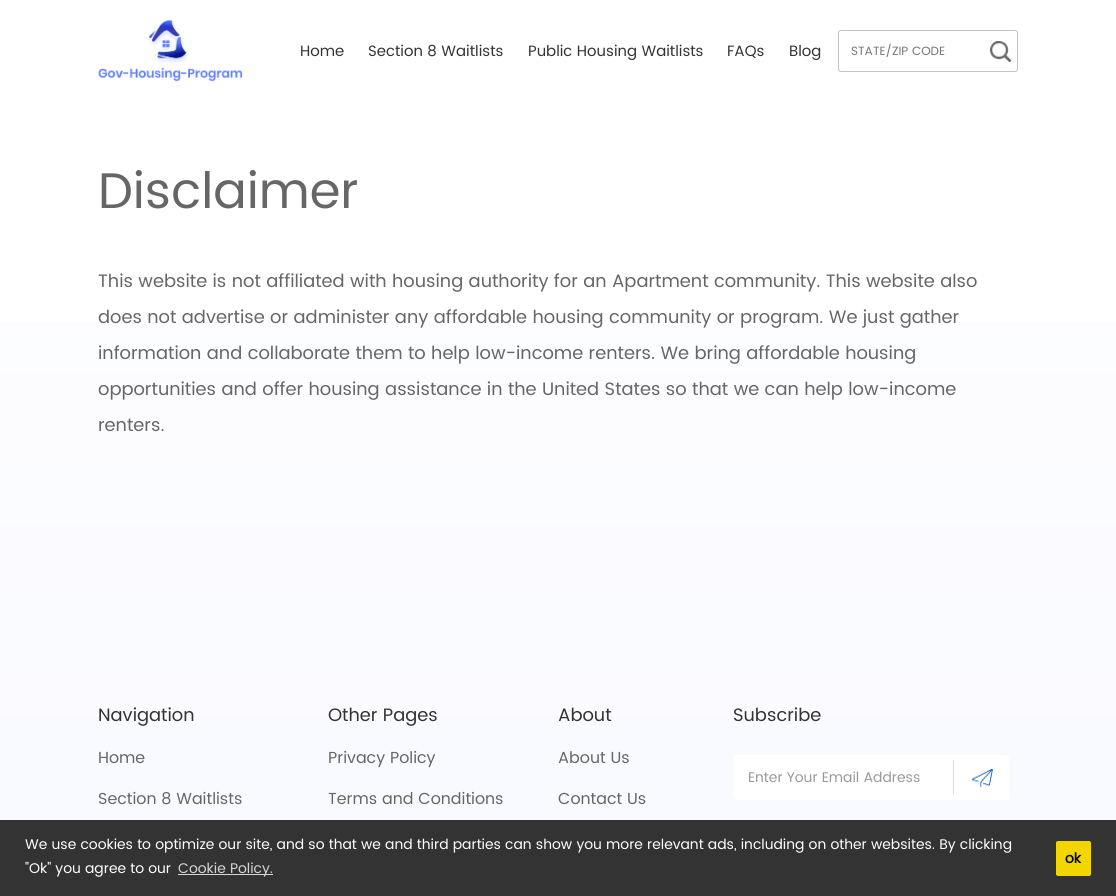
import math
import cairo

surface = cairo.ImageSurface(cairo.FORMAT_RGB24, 1116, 896)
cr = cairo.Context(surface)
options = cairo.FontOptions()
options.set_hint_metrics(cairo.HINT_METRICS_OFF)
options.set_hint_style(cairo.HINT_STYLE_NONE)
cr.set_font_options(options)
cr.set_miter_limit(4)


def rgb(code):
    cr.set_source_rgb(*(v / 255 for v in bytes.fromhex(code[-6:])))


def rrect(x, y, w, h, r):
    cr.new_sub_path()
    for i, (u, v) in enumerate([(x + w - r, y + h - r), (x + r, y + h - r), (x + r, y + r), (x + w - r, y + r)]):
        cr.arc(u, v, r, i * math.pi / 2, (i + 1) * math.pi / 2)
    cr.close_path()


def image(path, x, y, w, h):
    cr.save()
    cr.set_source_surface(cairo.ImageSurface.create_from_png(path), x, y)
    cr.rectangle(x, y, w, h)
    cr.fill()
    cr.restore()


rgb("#ffffff")
cr.paint()
gradient = cairo.LinearGradient(558, 0, 558, 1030)
gradient.add_color_stop_rgba(0, 1, 1, 1, 1)
gradient.add_color_stop_rgba(1, 0.969, 0.973, 1, 1)
cr.set_source(gradient)
cr.rectangle(0, 322, 1116, 498)
cr.fill()
image("img/1.png", 98, 20, 145, 62)
rrect(838.5, 30.5, 179, 41, 2.5)
rgb("#c3c3c3")
cr.set_line_width(1)
cr.stroke()
image("img/2.png", 990, 41, 21, 21)
rgb("#ffffff")
rrect(733, 755, 276, 45, 4)
cr.fill()
rgb("#dcdcdc")
cr.rectangle(953, 760, 1, 34)
cr.fill()
image("img/3.png", 972, 769, 21, 18)
rgb("#333333")
cr.rectangle(0, 820, 1116, 76)
cr.fill()
rgb("#d6d6d6")
cr.rectangle(178, 874, 95, 1)
cr.fill()
rgb("#f1d600")
rrect(1056, 841, 35, 35, 2)
cr.fill()
cr.select_font_face("Poppins")
cr.set_font_size(15)
rgb("#333333")
for x, y, s in [
    (300, 56, "Home"),
    (368, 56, "Section 8 Waitlists"),
    (528, 56, "Public Housing Waitlists"),
    (727, 56, "FAQs"),
    (789, 56, "Blog"),
]:
    cr.move_to(x, y)
    cr.show_text(s)
cr.set_font_size(12)
rgb("#757575")
cr.move_to(851, 55)
cr.show_text("STATE/ZIP CODE")
cr.set_font_size(50)
rgb("#666666")
cr.move_to(98, 208)
cr.show_text("Disclaimer")
cr.set_font_size(18)
for x, y, s in [
    (98, 287, "This website is not affiliated with housing authority for an Apartment community. This website also"),
    (98, 323, "does not advertise or administer any affordable housing community or program. We just gather"),
    (98, 359, "information and collaborate them to help low-income renters. We bring affordable housing"),
    (98, 395, "opportunities and offer housing assistance in the United States so that we can help low-income"),
    (98, 431, "renters."),
]:
    cr.move_to(x, y)
    cr.show_text(s)
rgb("#333333")
cr.move_to(98, 721)
cr.show_text("Navigation")
cr.set_font_size(16)
rgb("#666666")
cr.move_to(98, 763)
cr.show_text("Home")
cr.move_to(98, 804)
cr.show_text("Section 8 Waitlists")
cr.set_font_size(18)
rgb("#333333")
cr.move_to(328, 721)
cr.show_text("Other Pages")
cr.set_font_size(16)
rgb("#666666")
cr.move_to(328, 763)
cr.show_text("Privacy Policy")
cr.move_to(328, 804)
cr.show_text("Terms and Conditions")
cr.set_font_size(18)
rgb("#333333")
cr.move_to(558, 721)
cr.show_text("About")
cr.set_font_size(16)
rgb("#666666")
cr.move_to(558, 763)
cr.show_text("About Us")
cr.move_to(558, 804)
cr.show_text("Contact Us")
cr.set_font_size(18)
rgb("#333333")
cr.move_to(733, 721)
cr.show_text("Subscribe")
cr.set_font_size(14)
rgb("#999999")
cr.move_to(748, 782)
cr.show_text("Enter Your Email Address")
rgb("#ffffff")
cr.move_to(25, 849)
cr.show_text("We use cookies to optimize our site, and so that we and third parties can show you more relevant ads, including on other websites. By clicking")
cr.move_to(25, 873)
cr.show_text("\"Ok\" you agree to our")
rgb("#d6d6d6")
cr.move_to(178, 873)
cr.show_text("Cookie Policy.")
cr.select_font_face("Poppins", cairo.FONT_SLANT_NORMAL, cairo.FONT_WEIGHT_BOLD)
rgb("#000000")
cr.move_to(1065, 863)
cr.show_text("ok")
surface.write_to_png("page.png")
